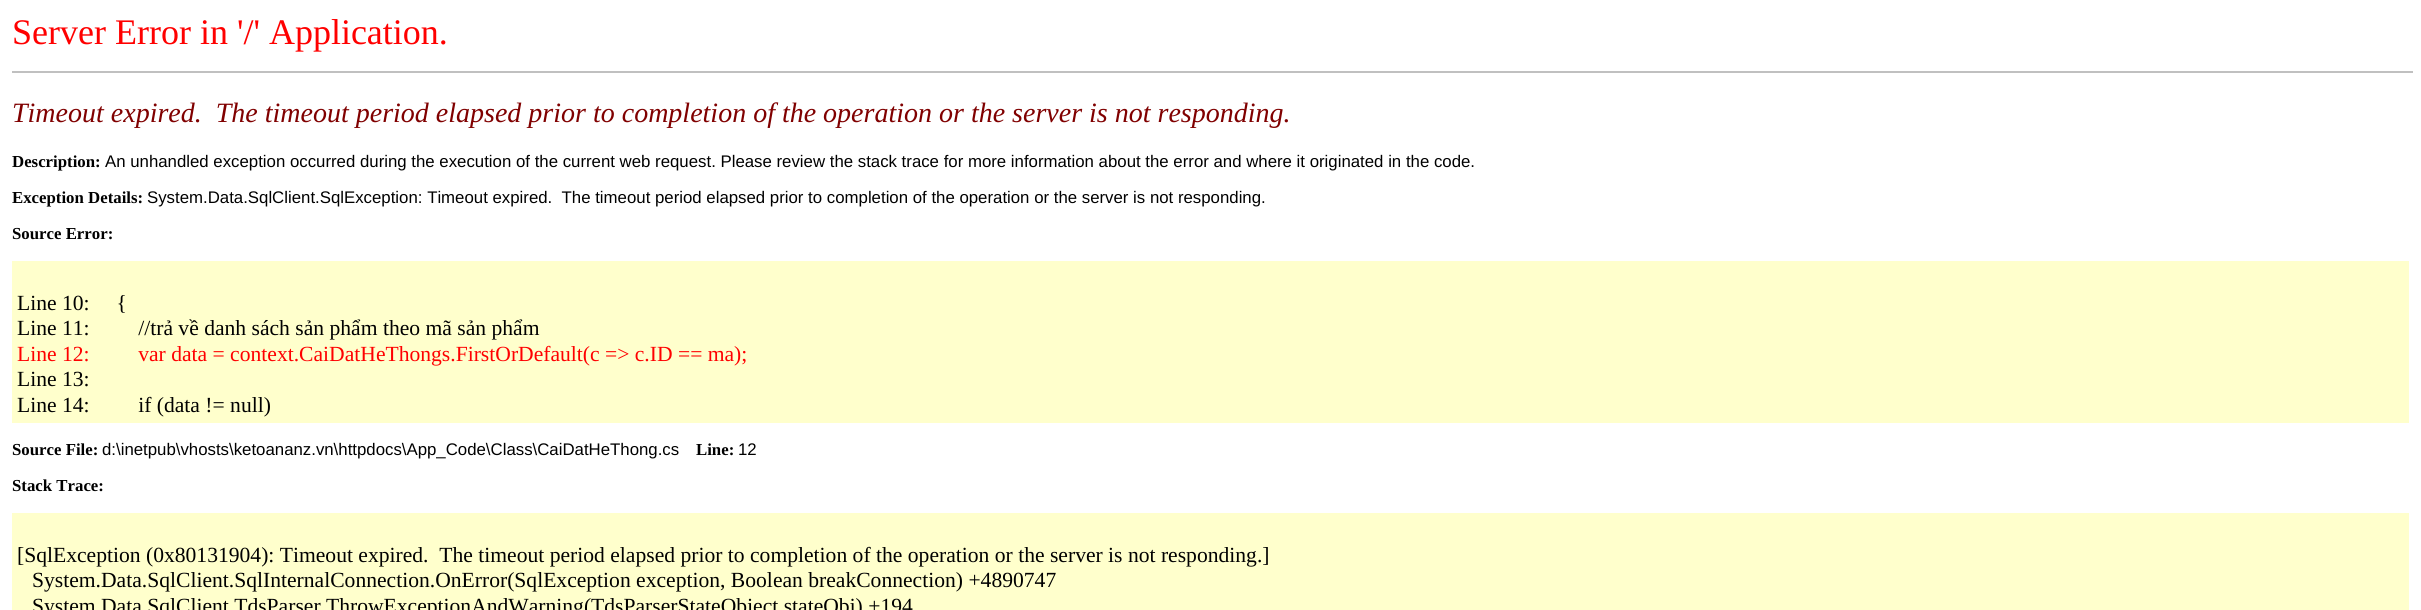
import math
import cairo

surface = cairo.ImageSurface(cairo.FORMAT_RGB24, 2421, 610)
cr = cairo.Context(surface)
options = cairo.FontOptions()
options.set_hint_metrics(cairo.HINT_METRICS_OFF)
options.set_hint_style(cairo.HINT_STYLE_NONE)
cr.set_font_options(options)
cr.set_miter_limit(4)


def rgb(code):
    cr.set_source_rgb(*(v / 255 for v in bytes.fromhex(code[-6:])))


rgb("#ffffff")
cr.paint()
for x, y, w, h, color in [
    (12, 71, 2401, 2, "#c0c0c0"),
    (12, 261, 2397, 162, "#ffffcc"),
    (12, 513, 2397, 97, "#ffffcc"),
]:
    rgb(color)
    cr.rectangle(x, y, w, h)
    cr.fill()
cr.select_font_face("Liberation Serif")
cr.set_font_size(36)
rgb("#ff0000")
cr.move_to(12, 44)
cr.show_text("Server Error in '/' Application.")
cr.select_font_face("Liberation Serif", cairo.FONT_SLANT_ITALIC)
cr.set_font_size(28)
rgb("#800000")
cr.move_to(12, 122)
cr.show_text("Timeout expired.  The timeout period elapsed prior to completion of the operation or the server is not responding.")
cr.select_font_face("Liberation Serif", cairo.FONT_SLANT_NORMAL, cairo.FONT_WEIGHT_BOLD)
cr.set_font_size(16.8)
rgb("#000000")
cr.move_to(12, 167)
cr.show_text("Description:")
cr.select_font_face("Liberation Sans")
cr.move_to(105, 167)
cr.show_text("An unhandled exception occurred during the execution of the current web request. Please review the stack trace for more information about the error and where it originated in the code.")
cr.select_font_face("Liberation Serif", cairo.FONT_SLANT_NORMAL, cairo.FONT_WEIGHT_BOLD)
cr.move_to(12, 203)
cr.show_text("Exception Details:")
cr.select_font_face("Liberation Sans")
cr.move_to(147, 203)
cr.show_text("System.Data.SqlClient.SqlException: Timeout expired.  The timeout period elapsed prior to completion of the operation or the server is not responding.")
cr.select_font_face("Liberation Serif", cairo.FONT_SLANT_NORMAL, cairo.FONT_WEIGHT_BOLD)
cr.move_to(12, 239)
cr.show_text("Source Error:")
cr.select_font_face("Liberation Serif")
cr.set_font_size(21.6)
cr.move_to(17, 310)
cr.show_text("Line 10:     {")
cr.move_to(17, 335)
cr.show_text("Line 11:         //trả về danh sách sản phẩm theo mã sản phẩm")
rgb("#ff0000")
cr.move_to(17, 361)
cr.show_text("Line 12:         var data = context.CaiDatHeThongs.FirstOrDefault(c => c.ID == ma);")
rgb("#000000")
cr.move_to(17, 386)
cr.show_text("Line 13:")
cr.move_to(17, 412)
cr.show_text("Line 14:         if (data != null)")
cr.select_font_face("Liberation Serif", cairo.FONT_SLANT_NORMAL, cairo.FONT_WEIGHT_BOLD)
cr.set_font_size(16.8)
cr.move_to(12, 455)
cr.show_text("Source File:")
cr.select_font_face("Liberation Sans")
cr.move_to(102, 455)
cr.show_text("d:\\inetpub\\vhosts\\ketoananz.vn\\httpdocs\\App_Code\\Class\\CaiDatHeThong.cs")
cr.select_font_face("Liberation Serif", cairo.FONT_SLANT_NORMAL, cairo.FONT_WEIGHT_BOLD)
cr.move_to(696, 455)
cr.show_text("Line:")
cr.select_font_face("Liberation Sans")
cr.move_to(738, 455)
cr.show_text("12")
cr.select_font_face("Liberation Serif", cairo.FONT_SLANT_NORMAL, cairo.FONT_WEIGHT_BOLD)
cr.move_to(12, 491)
cr.show_text("Stack Trace:")
cr.select_font_face("Liberation Serif")
cr.set_font_size(21.6)
for x, y, s in [
    (17, 562, "[SqlException (0x80131904): Timeout expired.  The timeout period elapsed prior to completion of the operation or the server is not responding.]"),
    (32, 587, "System.Data.SqlClient.SqlInternalConnection.OnError(SqlException exception, Boolean breakConnection) +4890747"),
    (32, 613, "System.Data.SqlClient.TdsParser.ThrowExceptionAndWarning(TdsParserStateObject stateObj) +194"),
]:
    cr.move_to(x, y)
    cr.show_text(s)
surface.write_to_png("page.png")
